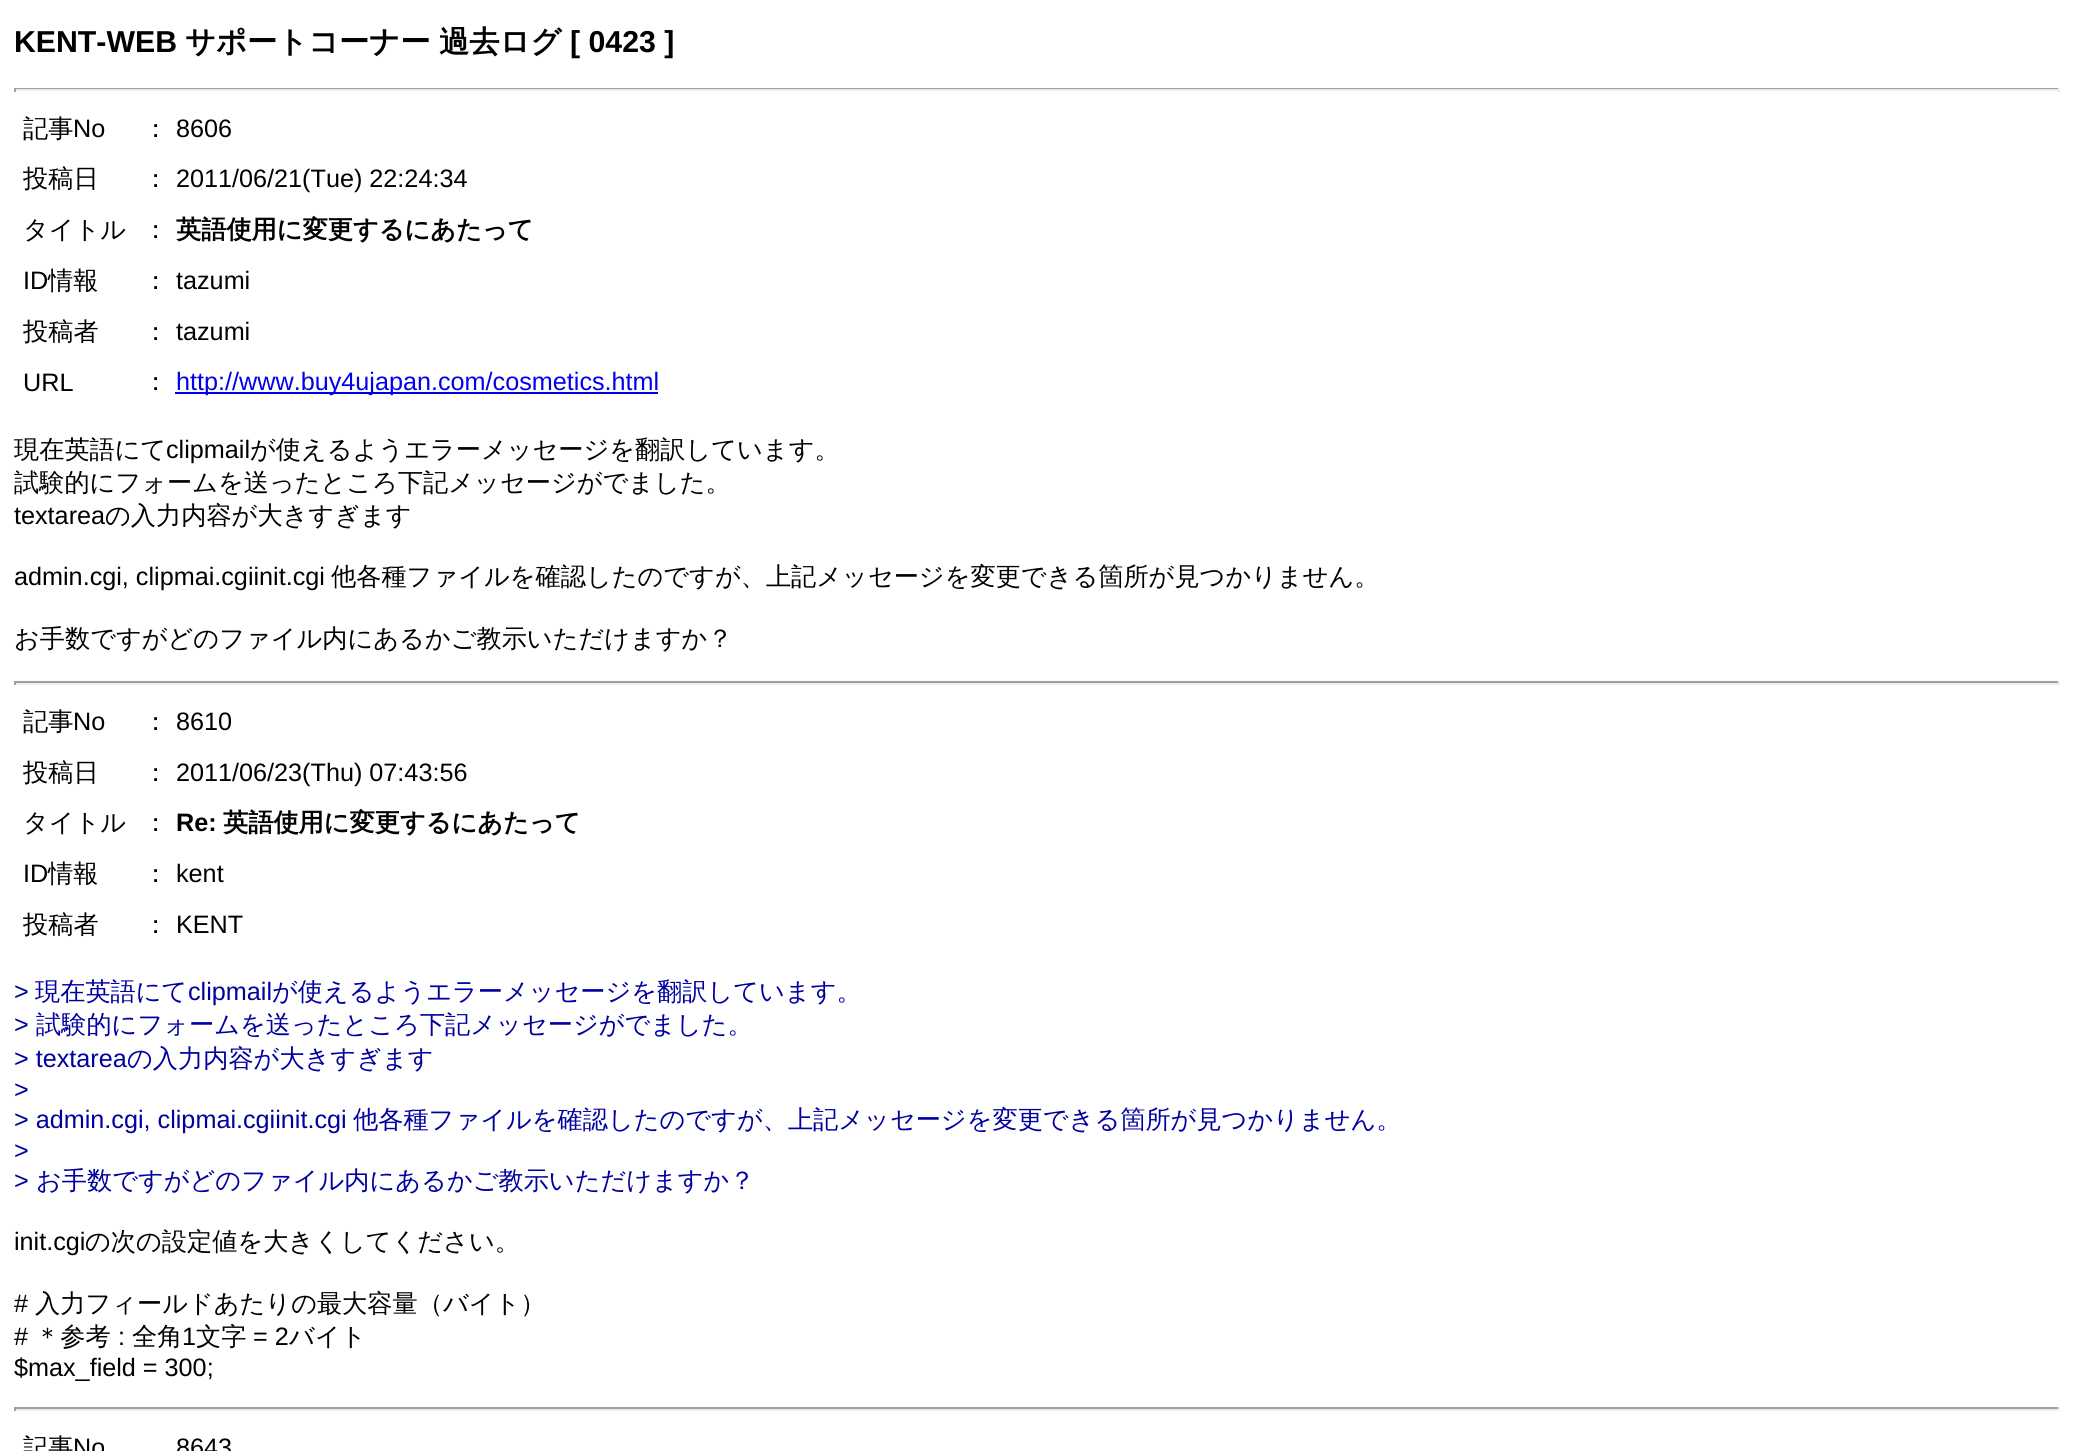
import math
import cairo

surface = cairo.ImageSurface(cairo.FORMAT_RGB24, 2073, 1451)
cr = cairo.Context(surface)
options = cairo.FontOptions()
options.set_hint_metrics(cairo.HINT_METRICS_OFF)
options.set_hint_style(cairo.HINT_STYLE_NONE)
cr.set_font_options(options)
cr.set_miter_limit(4)


def rgb(code):
    cr.set_source_rgb(*(v / 255 for v in bytes.fromhex(code[-6:])))


rgb("#ffffff")
cr.paint()
for x, y, w, h, color in [
    (14, 88, 2046, 1, "#9f9f9f"),
    (2058, 88, 2, 4, "#eeeeee"),
    (14, 89, 2046, 2, "#eeeeee"),
    (14, 88, 2, 4, "#9f9f9f"),
    (175, 392, 483, 2, "#0000ee"),
    (14, 681, 2046, 2, "#9f9f9f"),
    (2058, 681, 2, 4, "#eeeeee"),
    (14, 683, 2046, 2, "#eeeeee"),
    (14, 681, 2, 4, "#9f9f9f"),
    (14, 1407, 2046, 2, "#9f9f9f"),
    (2058, 1407, 2, 4, "#eeeeee"),
    (14, 1409, 2046, 2, "#eeeeee"),
    (14, 1407, 2, 4, "#9f9f9f"),
]:
    rgb(color)
    cr.rectangle(x, y, w, h)
    cr.fill()
cr.select_font_face("Liberation Sans", cairo.FONT_SLANT_NORMAL, cairo.FONT_WEIGHT_BOLD)
cr.set_font_size(30.25)
rgb("#000000")
cr.move_to(14, 52)
cr.show_text("KENT-WEB")
cr.select_font_face("WenQuanYi Zen Hei", cairo.FONT_SLANT_NORMAL, cairo.FONT_WEIGHT_BOLD)
cr.move_to(185, 52)
cr.show_text("サポートコーナー")
cr.move_to(439, 52)
cr.show_text("過去ログ")
cr.select_font_face("Liberation Sans", cairo.FONT_SLANT_NORMAL, cairo.FONT_WEIGHT_BOLD)
cr.move_to(570, 52)
cr.show_text("[ 0423 ]")
cr.select_font_face("WenQuanYi Zen Hei Medium")
cr.set_font_size(25.2)
cr.move_to(23, 137)
cr.show_text("記事")
cr.select_font_face("Liberation Sans")
cr.move_to(73, 137)
cr.show_text("No")
cr.select_font_face("WenQuanYi Zen Hei Medium")
cr.move_to(143, 137)
cr.show_text("：")
cr.select_font_face("Liberation Sans")
cr.move_to(176, 137)
cr.show_text("8606")
cr.select_font_face("WenQuanYi Zen Hei Medium")
cr.move_to(23, 187)
cr.show_text("投稿日")
cr.move_to(143, 187)
cr.show_text("：")
cr.select_font_face("Liberation Sans")
cr.move_to(176, 187)
cr.show_text("2011/06/21(Tue) 22:24:34")
cr.select_font_face("WenQuanYi Zen Hei Medium")
cr.move_to(23, 238)
cr.show_text("タイトル")
cr.move_to(143, 238)
cr.show_text("：")
cr.select_font_face("WenQuanYi Zen Hei", cairo.FONT_SLANT_NORMAL, cairo.FONT_WEIGHT_BOLD)
cr.move_to(176, 238)
cr.show_text("英語使用に変更するにあたって")
cr.select_font_face("Liberation Sans")
cr.move_to(23, 289)
cr.show_text("ID")
cr.select_font_face("WenQuanYi Zen Hei Medium")
cr.move_to(48, 289)
cr.show_text("情報")
cr.move_to(143, 289)
cr.show_text("：")
cr.select_font_face("Liberation Sans")
cr.move_to(176, 289)
cr.show_text("tazumi")
cr.select_font_face("WenQuanYi Zen Hei Medium")
cr.move_to(23, 340)
cr.show_text("投稿者")
cr.move_to(143, 340)
cr.show_text("：")
cr.select_font_face("Liberation Sans")
cr.move_to(176, 340)
cr.show_text("tazumi")
cr.move_to(23, 391)
cr.show_text("URL")
cr.select_font_face("WenQuanYi Zen Hei Medium")
cr.move_to(143, 390)
cr.show_text("：")
cr.select_font_face("Liberation Sans")
rgb("#0000ee")
cr.move_to(176, 390)
cr.show_text("http://www.buy4ujapan.com/cosmetics.html")
cr.select_font_face("WenQuanYi Zen Hei Medium")
rgb("#000000")
cr.move_to(14, 458)
cr.show_text("現在英語にて")
cr.select_font_face("Liberation Sans")
cr.move_to(166, 458)
cr.show_text("clipmail")
cr.select_font_face("WenQuanYi Zen Hei Medium")
cr.move_to(250, 458)
cr.show_text("が使えるようエラーメッセージを翻訳しています。")
cr.move_to(14, 491)
cr.show_text("試験的にフォームを送ったところ下記メッセージがでました。")
cr.select_font_face("Liberation Sans")
cr.move_to(14, 524)
cr.show_text("textarea")
cr.select_font_face("WenQuanYi Zen Hei Medium")
cr.move_to(105, 524)
cr.show_text("の入力内容が大きすぎます")
cr.select_font_face("Liberation Sans")
cr.move_to(14, 585)
cr.show_text("admin.cgi, clipmai.cgiinit.cgi")
cr.select_font_face("WenQuanYi Zen Hei Medium")
for x, y, s in [
    (331, 585, "他各種ファイルを確認したのですが、上記メッセージを変更できる箇所が見つかりません。"),
    (14, 647, "お手数ですがどのファイル内にあるかご教示いただけますか？"),
    (23, 730, "記事"),
]:
    cr.move_to(x, y)
    cr.show_text(s)
cr.select_font_face("Liberation Sans")
cr.move_to(73, 730)
cr.show_text("No")
cr.select_font_face("WenQuanYi Zen Hei Medium")
cr.move_to(143, 730)
cr.show_text("：")
cr.select_font_face("Liberation Sans")
cr.move_to(176, 730)
cr.show_text("8610")
cr.select_font_face("WenQuanYi Zen Hei Medium")
cr.move_to(23, 781)
cr.show_text("投稿日")
cr.move_to(143, 781)
cr.show_text("：")
cr.select_font_face("Liberation Sans")
cr.move_to(176, 781)
cr.show_text("2011/06/23(Thu) 07:43:56")
cr.select_font_face("WenQuanYi Zen Hei Medium")
cr.move_to(23, 831)
cr.show_text("タイトル")
cr.move_to(143, 831)
cr.show_text("：")
cr.select_font_face("Liberation Sans", cairo.FONT_SLANT_NORMAL, cairo.FONT_WEIGHT_BOLD)
cr.move_to(176, 831)
cr.show_text("Re:")
cr.select_font_face("WenQuanYi Zen Hei", cairo.FONT_SLANT_NORMAL, cairo.FONT_WEIGHT_BOLD)
cr.move_to(223, 831)
cr.show_text("英語使用に変更するにあたって")
cr.select_font_face("Liberation Sans")
cr.move_to(23, 882)
cr.show_text("ID")
cr.select_font_face("WenQuanYi Zen Hei Medium")
cr.move_to(48, 882)
cr.show_text("情報")
cr.move_to(143, 882)
cr.show_text("：")
cr.select_font_face("Liberation Sans")
cr.move_to(176, 882)
cr.show_text("kent")
cr.select_font_face("WenQuanYi Zen Hei Medium")
cr.move_to(23, 933)
cr.show_text("投稿者")
cr.move_to(143, 933)
cr.show_text("：")
cr.select_font_face("Liberation Sans")
cr.move_to(176, 933)
cr.show_text("KENT")
rgb("#0000a0")
cr.move_to(14, 1000)
cr.show_text(">")
cr.select_font_face("WenQuanYi Zen Hei Medium")
cr.move_to(35, 1000)
cr.show_text("現在英語にて")
cr.select_font_face("Liberation Sans")
cr.move_to(188, 1000)
cr.show_text("clipmail")
cr.select_font_face("WenQuanYi Zen Hei Medium")
cr.move_to(272, 1000)
cr.show_text("が使えるようエラーメッセージを翻訳しています。")
cr.select_font_face("Liberation Sans")
cr.move_to(14, 1033)
cr.show_text(">")
cr.select_font_face("WenQuanYi Zen Hei Medium")
cr.move_to(36, 1033)
cr.show_text("試験的にフォームを送ったところ下記メッセージがでました。")
cr.select_font_face("Liberation Sans")
cr.move_to(14, 1067)
cr.show_text("> textarea")
cr.select_font_face("WenQuanYi Zen Hei Medium")
cr.move_to(127, 1067)
cr.show_text("の入力内容が大きすぎます")
cr.select_font_face("Liberation Sans")
cr.move_to(14, 1098)
cr.show_text(">")
cr.move_to(14, 1128)
cr.show_text("> admin.cgi, clipmai.cgiinit.cgi")
cr.select_font_face("WenQuanYi Zen Hei Medium")
cr.move_to(353, 1128)
cr.show_text("他各種ファイルを確認したのですが、上記メッセージを変更できる箇所が見つかりません。")
cr.select_font_face("Liberation Sans")
cr.move_to(14, 1159)
cr.show_text(">")
cr.move_to(14, 1189)
cr.show_text(">")
cr.select_font_face("WenQuanYi Zen Hei Medium")
cr.move_to(36, 1189)
cr.show_text("お手数ですがどのファイル内にあるかご教示いただけますか？")
cr.select_font_face("Liberation Sans")
rgb("#000000")
cr.move_to(14, 1250)
cr.show_text("init.cgi")
cr.select_font_face("WenQuanYi Zen Hei Medium")
cr.move_to(85, 1250)
cr.show_text("の次の設定値を大きくしてください。")
cr.select_font_face("Liberation Sans")
cr.move_to(14, 1312)
cr.show_text("#")
cr.select_font_face("WenQuanYi Zen Hei Medium")
cr.move_to(35, 1312)
cr.show_text("入力フィールドあたりの最大容量（バイト）")
cr.select_font_face("Liberation Sans")
cr.move_to(14, 1345)
cr.show_text("#")
cr.select_font_face("WenQuanYi Zen Hei Medium")
cr.move_to(35, 1345)
cr.show_text("＊参考")
cr.select_font_face("Liberation Sans")
cr.move_to(118, 1345)
cr.show_text(":")
cr.select_font_face("WenQuanYi Zen Hei Medium")
cr.move_to(132, 1345)
cr.show_text("全角")
cr.select_font_face("Liberation Sans")
cr.move_to(182, 1345)
cr.show_text("1")
cr.select_font_face("WenQuanYi Zen Hei Medium")
cr.move_to(196, 1345)
cr.show_text("文字")
cr.select_font_face("Liberation Sans")
cr.move_to(253, 1345)
cr.show_text("= 2")
cr.select_font_face("WenQuanYi Zen Hei Medium")
cr.move_to(289, 1345)
cr.show_text("バイト")
cr.select_font_face("Liberation Sans")
cr.move_to(14, 1376)
cr.show_text("$max_field = 300;")
cr.select_font_face("WenQuanYi Zen Hei Medium")
cr.move_to(23, 1456)
cr.show_text("記事")
cr.select_font_face("Liberation Sans")
cr.move_to(73, 1456)
cr.show_text("No")
cr.move_to(176, 1456)
cr.show_text("8643")
surface.write_to_png("page.png")
